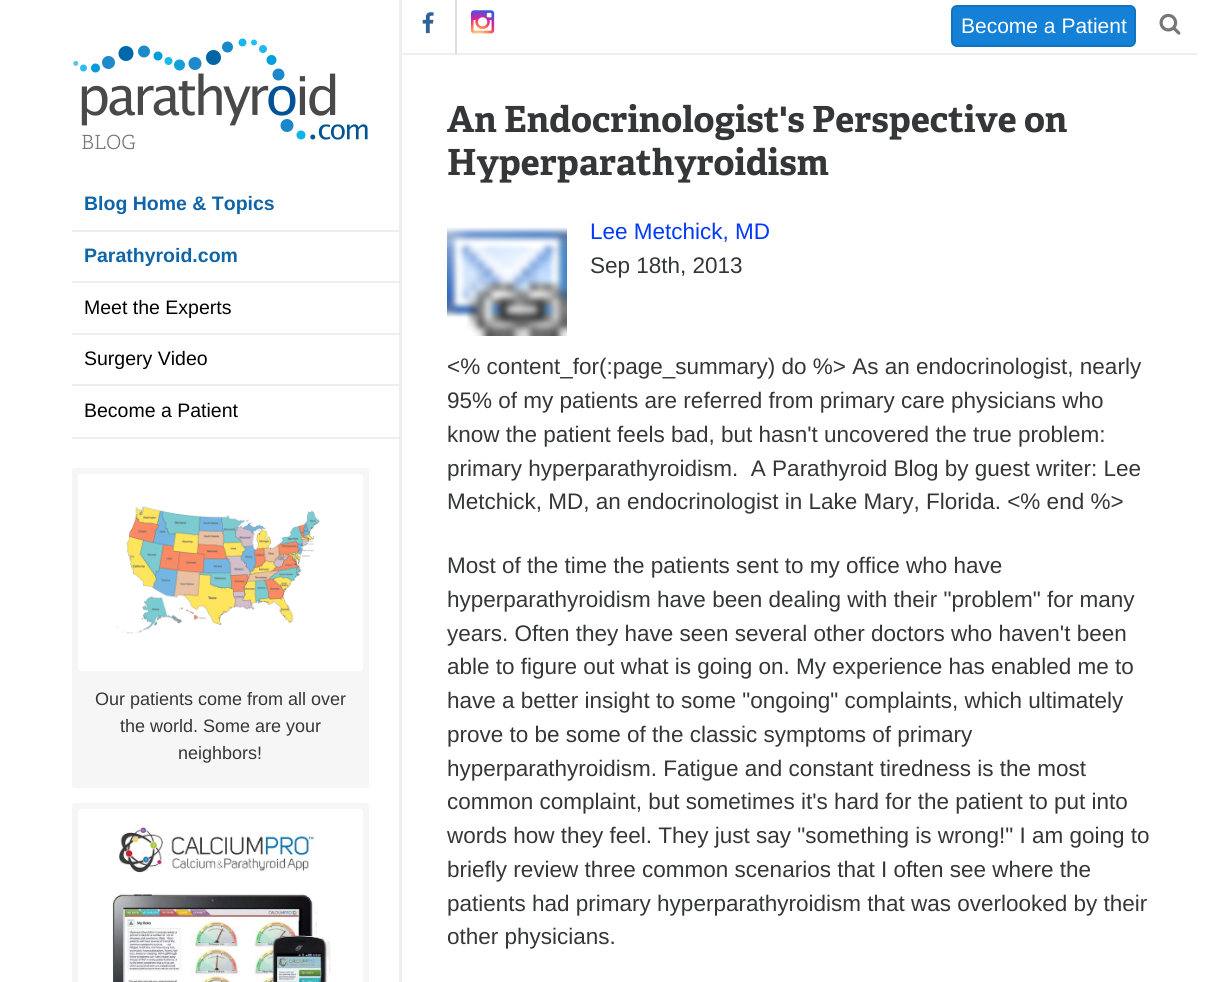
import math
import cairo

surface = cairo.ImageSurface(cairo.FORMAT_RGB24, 1223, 982)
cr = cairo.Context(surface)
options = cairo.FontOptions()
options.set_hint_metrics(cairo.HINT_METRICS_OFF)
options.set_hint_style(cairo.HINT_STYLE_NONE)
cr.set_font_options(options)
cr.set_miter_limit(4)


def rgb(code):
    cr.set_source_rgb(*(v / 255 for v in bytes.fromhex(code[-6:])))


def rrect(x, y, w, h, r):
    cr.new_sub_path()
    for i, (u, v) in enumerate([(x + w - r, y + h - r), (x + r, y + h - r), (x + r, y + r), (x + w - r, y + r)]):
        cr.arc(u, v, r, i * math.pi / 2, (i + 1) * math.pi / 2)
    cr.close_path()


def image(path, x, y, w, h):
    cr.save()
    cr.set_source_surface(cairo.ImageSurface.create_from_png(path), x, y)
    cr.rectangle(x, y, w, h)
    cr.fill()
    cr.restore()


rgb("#ffffff")
cr.paint()
rgb("#eeeeee")
cr.rectangle(399, 0, 3, 982)
cr.fill()
image("img/1.png", 73, 38, 295, 102)
for x, y, w, h, color in [
    (72, 230, 327, 2, "#eeeeee"),
    (72, 281, 327, 2, "#eeeeee"),
    (72, 333, 327, 2, "#eeeeee"),
    (72, 384, 327, 2, "#eeeeee"),
    (72, 437, 327, 2, "#eeeeee"),
]:
    rgb(color)
    cr.rectangle(x, y, w, h)
    cr.fill()
rgb("#f6f6f6")
rrect(72, 468, 297, 320, 3)
cr.fill()
rgb("#ffffff")
rrect(78, 474, 285, 197, 3)
cr.fill()
image("img/2.png", 116, 506, 204, 128)
rgb("#f6f6f6")
rrect(72, 803, 297, 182, 3)
cr.fill()
rgb("#ffffff")
rrect(78, 809, 285, 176, 3)
cr.fill()
image("img/3.png", 112, 824, 219, 158)
rgb("#eeeeee")
cr.rectangle(402, 53, 795, 2)
cr.fill()
rgb("#dddddd")
cr.rectangle(455, 0, 2, 54)
cr.fill()
image("img/4.png", 422, 12, 12, 22)
image("img/5.png", 471, 10, 24, 24)
rgb("#1481d7")
rrect(952, 6, 183, 40, 5)
cr.fill_preserve()
rgb("#1273c0")
cr.stroke()
image("img/6.png", 1159, 13, 22, 22)
image("img/7.png", 447, 227, 120, 109)
cr.select_font_face("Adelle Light")
cr.set_font_size(19.5)
rgb("#777777")
cr.move_to(81, 149)
cr.show_text("BLOG")
cr.select_font_face("Liberation Sans", cairo.FONT_SLANT_NORMAL, cairo.FONT_WEIGHT_BOLD)
rgb("#1065a8")
cr.move_to(84, 210)
cr.show_text("Blog Home & Topics")
cr.move_to(84, 262)
cr.show_text("Parathyroid.com")
cr.select_font_face("Liberation Sans")
rgb("#000000")
for x, y, s in [
    (84, 314, "Meet the Experts"),
    (84, 365, "Surgery Video"),
    (84, 417, "Become a Patient"),
]:
    cr.move_to(x, y)
    cr.show_text(s)
cr.set_font_size(18)
rgb("#353637")
for x, y, s in [
    (95, 705, "Our patients come from all over"),
    (120, 732, "the world. Some are your"),
    (178, 759, "neighbors!"),
]:
    cr.move_to(x, y)
    cr.show_text(s)
cr.set_font_size(21)
rgb("#ffffff")
cr.move_to(961, 33)
cr.show_text("Become a Patient")
cr.select_font_face("Adelle", cairo.FONT_SLANT_NORMAL, cairo.FONT_WEIGHT_BOLD)
cr.set_font_size(36)
rgb("#353637")
cr.move_to(447, 132)
cr.show_text("An Endocrinologist's Perspective on")
cr.move_to(447, 175)
cr.show_text("Hyperparathyroidism")
cr.select_font_face("Liberation Sans")
cr.set_font_size(22.5)
rgb("#0039fa")
cr.move_to(590, 239)
cr.show_text("Lee Metchick, MD")
rgb("#353637")
for x, y, s in [
    (590, 273, "Sep 18th, 2013"),
    (447, 374, "<% content_for(:page_summary) do %> As an endocrinologist, nearly"),
    (447, 408, "95% of my patients are referred from primary care physicians who"),
    (447, 442, "know the patient feels bad, but hasn't uncovered the true problem:"),
    (447, 476, "primary hyperparathyroidism.  A Parathyroid Blog by guest writer: Lee"),
    (447, 509, "Metchick, MD, an endocrinologist in Lake Mary, Florida. <% end %>"),
    (447, 573, "Most of the time the patients sent to my office who have"),
    (447, 607, "hyperparathyroidism have been dealing with their \"problem\" for many"),
    (447, 641, "years. Often they have seen several other doctors who haven't been"),
    (447, 674, "able to figure out what is going on. My experience has enabled me to"),
    (447, 708, "have a better insight to some \"ongoing\" complaints, which ultimately"),
    (447, 742, "prove to be some of the classic symptoms of primary"),
    (447, 776, "hyperparathyroidism. Fatigue and constant tiredness is the most"),
    (447, 809, "common complaint, but sometimes it's hard for the patient to put into"),
    (447, 843, "words how they feel. They just say \"something is wrong!\" I am going to"),
    (447, 877, "briefly review three common scenarios that I often see where the"),
    (447, 911, "patients had primary hyperparathyroidism that was overlooked by their"),
    (447, 944, "other physicians."),
]:
    cr.move_to(x, y)
    cr.show_text(s)
surface.write_to_png("page.png")
